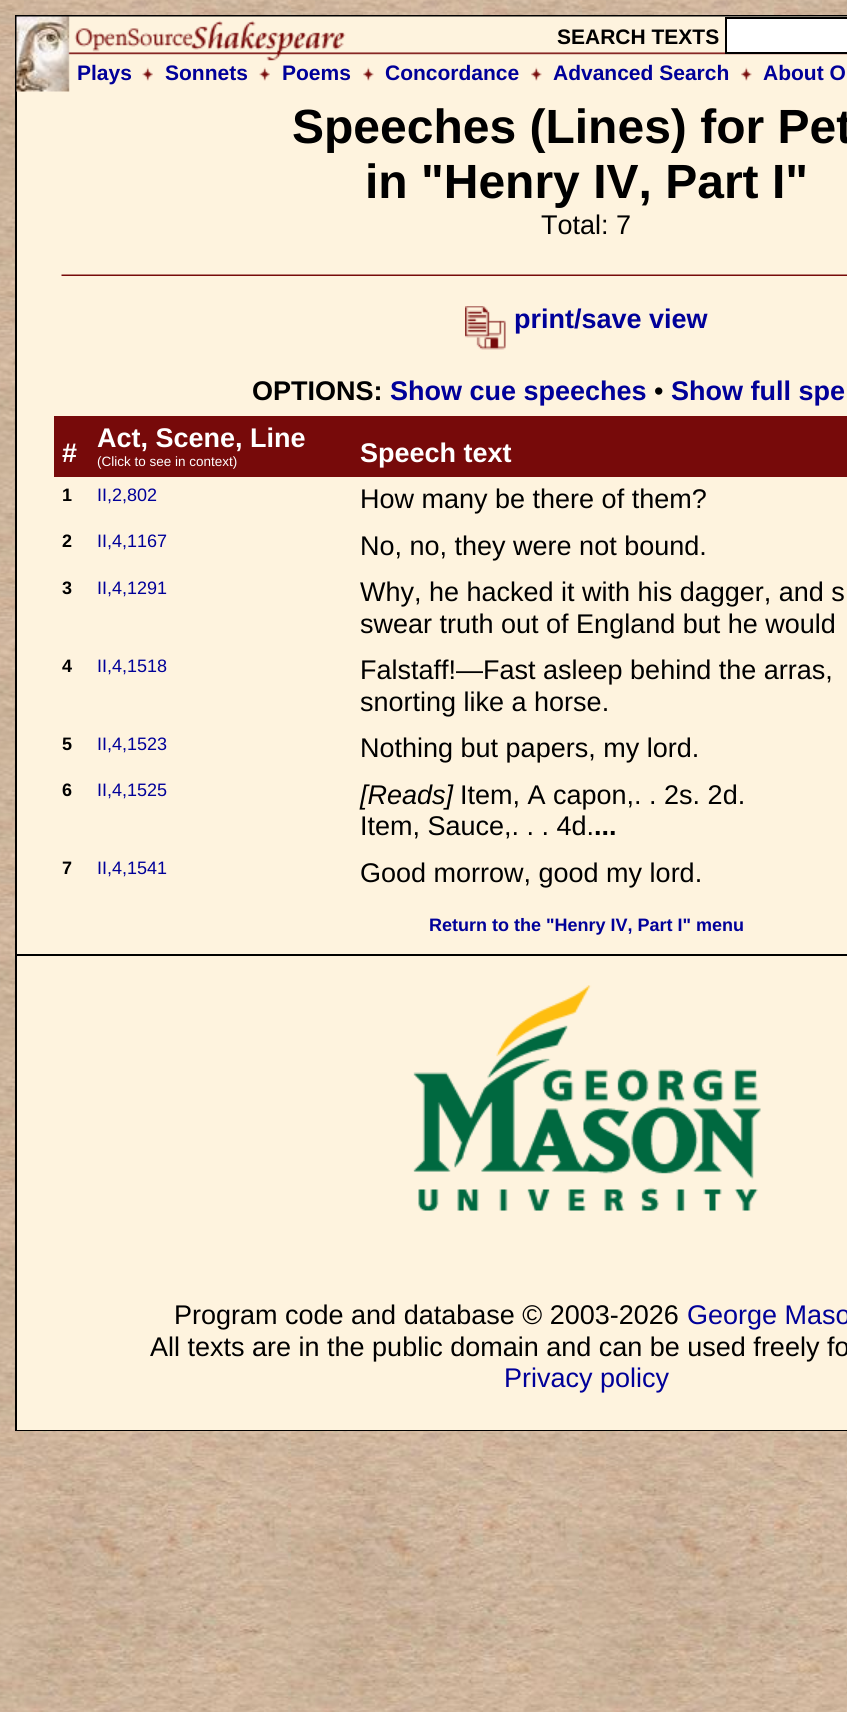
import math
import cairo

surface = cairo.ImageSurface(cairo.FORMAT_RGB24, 847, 1712)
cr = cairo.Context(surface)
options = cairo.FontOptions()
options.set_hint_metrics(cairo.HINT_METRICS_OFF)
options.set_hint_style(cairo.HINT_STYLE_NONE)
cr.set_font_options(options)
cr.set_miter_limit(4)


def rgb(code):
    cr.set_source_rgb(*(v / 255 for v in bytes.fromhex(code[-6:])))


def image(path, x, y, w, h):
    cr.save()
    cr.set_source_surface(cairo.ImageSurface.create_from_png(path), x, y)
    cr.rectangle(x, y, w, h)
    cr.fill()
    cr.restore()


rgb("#ffffff")
cr.paint()
image("img/1.png", 0, 0, 847, 1712)
rgb("#fef3de")
cr.rectangle(17, 91, 830, 863)
cr.fill()
cr.rectangle(16, 16, 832, 1414)
rgb("#000000")
cr.stroke()
image("img/2.png", 16, 16, 831, 76)
rgb("#ffffff")
cr.rectangle(726, 18, 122, 35)
cr.fill_preserve()
rgb("#000000")
cr.stroke()
image("img/3.png", 142, 67, 11, 14)
image("img/3.png", 259, 67, 11, 14)
image("img/4.png", 363, 67, 11, 14)
image("img/4.png", 531, 67, 11, 14)
image("img/4.png", 741, 67, 11, 14)
image("img/5.png", 61, 274, 786, 2)
image("img/6.png", 465, 306, 41, 44)
for x, y, w, h, color in [
    (54, 416, 793, 61, "#770a0a"),
    (17, 956, 830, 474, "#fef3de"),
    (17, 954, 830, 2, "#000000"),
]:
    rgb(color)
    cr.rectangle(x, y, w, h)
    cr.fill()
image("img/7.png", 413, 985, 348, 226)
cr.select_font_face("Liberation Sans", cairo.FONT_SLANT_NORMAL, cairo.FONT_WEIGHT_BOLD)
cr.set_font_size(21)
cr.move_to(557, 44)
cr.show_text("SEARCH TEXTS")
rgb("#000099")
for x, y, s in [
    (77, 80, "Plays"),
    (165, 80, "Sonnets"),
    (282, 80, "Poems"),
    (385, 80, "Concordance"),
    (553, 80, "Advanced Search"),
    (763, 80, "About O"),
]:
    cr.move_to(x, y)
    cr.show_text(s)
cr.set_font_size(48)
rgb("#000000")
cr.move_to(292, 143)
cr.show_text("Speeches (Lines) for Pet")
cr.move_to(365, 198)
cr.show_text("in \"Henry IV, Part I\"")
cr.select_font_face("Liberation Sans")
cr.set_font_size(27)
cr.move_to(541, 234)
cr.show_text("Total: 7")
cr.select_font_face("Liberation Sans", cairo.FONT_SLANT_NORMAL, cairo.FONT_WEIGHT_BOLD)
rgb("#000099")
cr.move_to(514, 328)
cr.show_text("print/save view")
rgb("#000000")
cr.move_to(252, 400)
cr.show_text("OPTIONS:")
rgb("#000099")
cr.move_to(390, 400)
cr.show_text("Show cue speeches")
cr.select_font_face("Liberation Sans")
rgb("#000000")
cr.move_to(654, 400)
cr.show_text("•")
cr.select_font_face("Liberation Sans", cairo.FONT_SLANT_NORMAL, cairo.FONT_WEIGHT_BOLD)
rgb("#000099")
cr.move_to(671, 400)
cr.show_text("Show full spe")
rgb("#ffffff")
cr.move_to(62, 462)
cr.show_text("#")
cr.move_to(97, 447)
cr.show_text("Act, Scene, Line")
cr.select_font_face("Liberation Sans")
cr.set_font_size(13.5)
cr.move_to(97, 466)
cr.show_text("(Click to see in context)")
cr.select_font_face("Liberation Sans", cairo.FONT_SLANT_NORMAL, cairo.FONT_WEIGHT_BOLD)
cr.set_font_size(27)
cr.move_to(360, 462)
cr.show_text("Speech text")
cr.set_font_size(18)
rgb("#000000")
cr.move_to(62, 501)
cr.show_text("1")
cr.select_font_face("Liberation Sans")
rgb("#000099")
cr.move_to(97, 501)
cr.show_text("II,2,802")
cr.set_font_size(27)
rgb("#000000")
cr.move_to(360, 508)
cr.show_text("How many be there of them?")
cr.select_font_face("Liberation Sans", cairo.FONT_SLANT_NORMAL, cairo.FONT_WEIGHT_BOLD)
cr.set_font_size(18)
cr.move_to(62, 547)
cr.show_text("2")
cr.select_font_face("Liberation Sans")
rgb("#000099")
cr.move_to(97, 547)
cr.show_text("II,4,1167")
cr.set_font_size(27)
rgb("#000000")
cr.move_to(360, 555)
cr.show_text("No, no, they were not bound.")
cr.select_font_face("Liberation Sans", cairo.FONT_SLANT_NORMAL, cairo.FONT_WEIGHT_BOLD)
cr.set_font_size(18)
cr.move_to(62, 594)
cr.show_text("3")
cr.select_font_face("Liberation Sans")
rgb("#000099")
cr.move_to(97, 594)
cr.show_text("II,4,1291")
cr.set_font_size(27)
rgb("#000000")
cr.move_to(360, 601)
cr.show_text("Why, he hacked it with his dagger, and s")
cr.move_to(360, 633)
cr.show_text("swear truth out of England but he would")
cr.select_font_face("Liberation Sans", cairo.FONT_SLANT_NORMAL, cairo.FONT_WEIGHT_BOLD)
cr.set_font_size(18)
cr.move_to(62, 672)
cr.show_text("4")
cr.select_font_face("Liberation Sans")
rgb("#000099")
cr.move_to(97, 672)
cr.show_text("II,4,1518")
cr.set_font_size(27)
rgb("#000000")
cr.move_to(360, 679)
cr.show_text("Falstaff!—Fast asleep behind the arras,")
cr.move_to(360, 711)
cr.show_text("snorting like a horse.")
cr.select_font_face("Liberation Sans", cairo.FONT_SLANT_NORMAL, cairo.FONT_WEIGHT_BOLD)
cr.set_font_size(18)
cr.move_to(62, 750)
cr.show_text("5")
cr.select_font_face("Liberation Sans")
rgb("#000099")
cr.move_to(97, 750)
cr.show_text("II,4,1523")
cr.set_font_size(27)
rgb("#000000")
cr.move_to(360, 757)
cr.show_text("Nothing but papers, my lord.")
cr.select_font_face("Liberation Sans", cairo.FONT_SLANT_NORMAL, cairo.FONT_WEIGHT_BOLD)
cr.set_font_size(18)
cr.move_to(62, 796)
cr.show_text("6")
cr.select_font_face("Liberation Sans")
rgb("#000099")
cr.move_to(97, 796)
cr.show_text("II,4,1525")
cr.select_font_face("Liberation Sans", cairo.FONT_SLANT_ITALIC)
cr.set_font_size(27)
rgb("#000000")
cr.move_to(360, 804)
cr.show_text("[Reads]")
cr.select_font_face("Liberation Sans")
cr.move_to(460, 804)
cr.show_text("Item, A capon,. . 2s. 2d.")
cr.move_to(360, 835)
cr.show_text("Item, Sauce,. . . 4d.")
cr.select_font_face("Liberation Sans", cairo.FONT_SLANT_NORMAL, cairo.FONT_WEIGHT_BOLD)
cr.move_to(594, 835)
cr.show_text("...")
cr.set_font_size(18)
cr.move_to(62, 874)
cr.show_text("7")
cr.select_font_face("Liberation Sans")
rgb("#000099")
cr.move_to(97, 874)
cr.show_text("II,4,1541")
cr.set_font_size(27)
rgb("#000000")
cr.move_to(360, 882)
cr.show_text("Good morrow, good my lord.")
cr.select_font_face("Liberation Sans", cairo.FONT_SLANT_NORMAL, cairo.FONT_WEIGHT_BOLD)
cr.set_font_size(18)
rgb("#000099")
cr.move_to(429, 931)
cr.show_text("Return to the \"Henry IV, Part I\" menu")
cr.select_font_face("Liberation Sans")
cr.set_font_size(27)
rgb("#000000")
cr.move_to(174, 1324)
cr.show_text("Program code and database © 2003-2026")
rgb("#000099")
cr.move_to(687, 1324)
cr.show_text("George Maso")
rgb("#000000")
cr.move_to(150, 1356)
cr.show_text("All texts are in the public domain and can be used freely fo")
rgb("#000099")
cr.move_to(504, 1387)
cr.show_text("Privacy policy")
surface.write_to_png("page.png")
